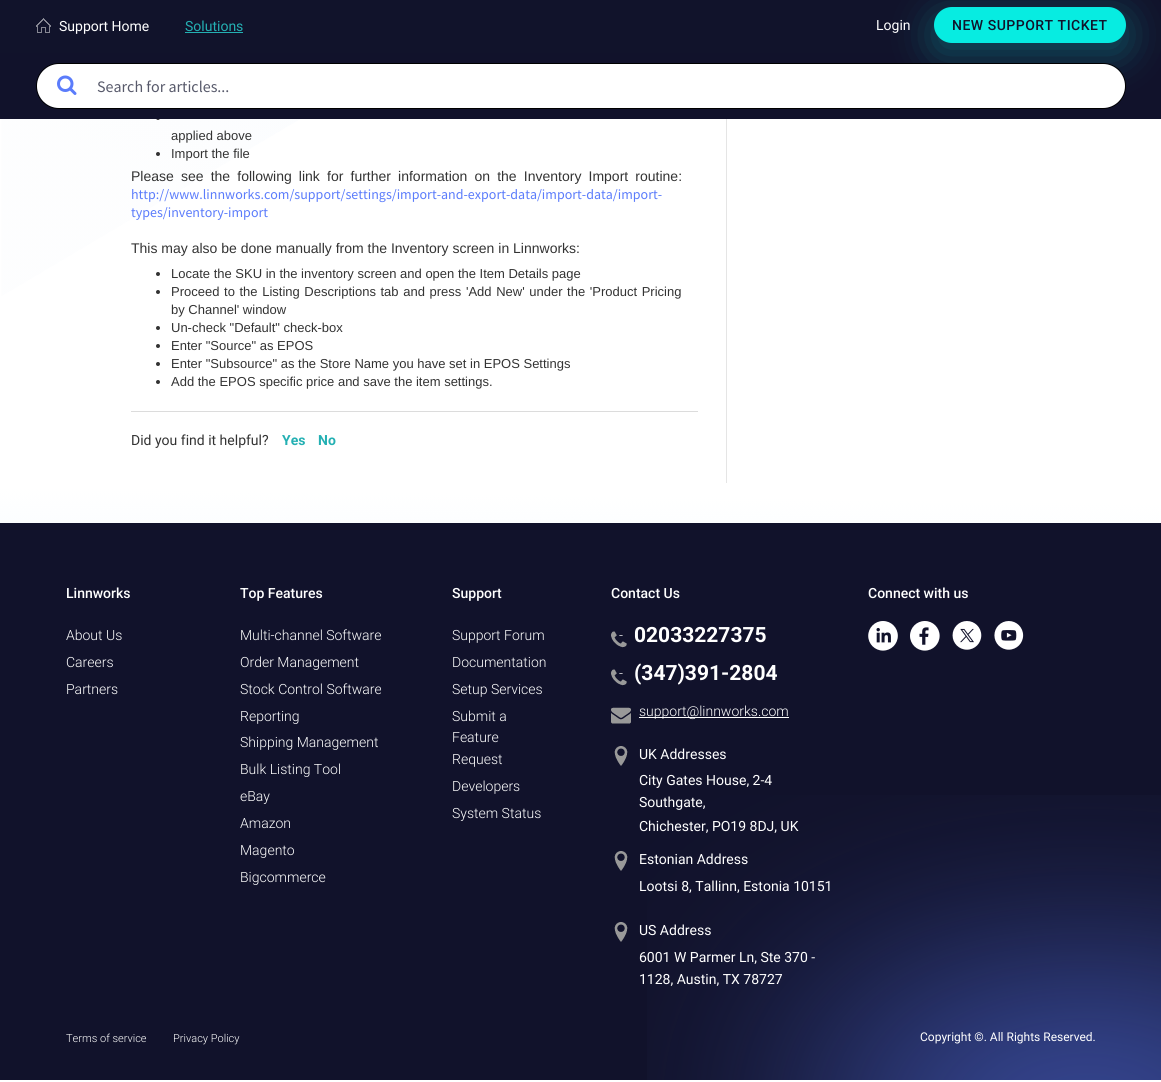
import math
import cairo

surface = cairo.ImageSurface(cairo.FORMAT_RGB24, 1161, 1082)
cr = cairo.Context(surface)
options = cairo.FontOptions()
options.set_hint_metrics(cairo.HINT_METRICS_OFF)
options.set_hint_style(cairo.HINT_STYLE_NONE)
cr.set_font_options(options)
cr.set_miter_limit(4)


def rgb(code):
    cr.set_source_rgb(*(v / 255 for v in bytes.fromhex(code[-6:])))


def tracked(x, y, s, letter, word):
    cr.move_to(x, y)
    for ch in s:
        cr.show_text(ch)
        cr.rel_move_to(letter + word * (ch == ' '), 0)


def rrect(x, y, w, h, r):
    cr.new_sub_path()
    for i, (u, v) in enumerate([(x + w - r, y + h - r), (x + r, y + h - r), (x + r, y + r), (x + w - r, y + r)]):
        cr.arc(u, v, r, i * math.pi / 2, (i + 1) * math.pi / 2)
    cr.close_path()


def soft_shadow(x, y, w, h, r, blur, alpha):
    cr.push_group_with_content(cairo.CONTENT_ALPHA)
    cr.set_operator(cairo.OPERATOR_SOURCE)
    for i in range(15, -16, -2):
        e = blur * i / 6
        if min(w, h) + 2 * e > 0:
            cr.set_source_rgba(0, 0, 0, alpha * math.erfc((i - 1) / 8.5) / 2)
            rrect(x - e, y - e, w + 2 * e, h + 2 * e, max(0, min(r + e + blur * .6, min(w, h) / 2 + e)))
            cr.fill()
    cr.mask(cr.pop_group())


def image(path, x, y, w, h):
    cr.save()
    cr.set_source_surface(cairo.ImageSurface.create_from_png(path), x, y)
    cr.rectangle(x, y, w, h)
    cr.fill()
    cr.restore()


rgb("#ffffff")
cr.paint()
image("img/1.png", 0, 119, 1161, 404)
rgb("#11132b")
cr.rectangle(0, 0, 1161, 53)
cr.fill()
image("img/2.png", 36, 18, 15, 15)
rgb("#24b0b3")
cr.rectangle(185, 32, 58, 1)
cr.fill()
rgb("#333333")
cr.arc(158, 118, 2, 0, 2 * math.pi)
cr.fill()
rgb("#11122b")
cr.rectangle(0, 53, 1161, 66)
cr.fill()
rgb("#07ece1")
soft_shadow(934, 17, 192, 36, 18, 20, 0.3)
rgb("#07ece1")
rrect(934, 7, 192, 36, 18)
cr.fill()
rrect(36.5, 63.5, 1089, 45, 22.5)
rgb("#000000")
cr.set_line_width(1)
cr.stroke()
rgb("#ffffff")
rrect(37, 64, 1088, 44, 22)
cr.fill()
image("img/3.png", 57, 75, 20, 20)
rgb("#e5e5e5")
cr.rectangle(726, 119, 1, 364)
cr.fill()
rgb("#333333")
cr.arc(158, 154, 2, 0, 2 * math.pi)
cr.fill()
cr.arc(158, 274, 2, 0, 2 * math.pi)
cr.fill()
cr.arc(158, 292, 2, 0, 2 * math.pi)
cr.fill()
cr.arc(158, 328, 2, 0, 2 * math.pi)
cr.fill()
cr.arc(158, 346, 2, 0, 2 * math.pi)
cr.fill()
cr.arc(158, 364, 2, 0, 2 * math.pi)
cr.fill()
cr.arc(158, 382, 2, 0, 2 * math.pi)
cr.fill()
rgb("#dcdcdc")
cr.rectangle(131, 411, 567, 1)
cr.fill()
rgb("#11122b")
cr.rectangle(0, 523, 1161, 557)
cr.fill()
image("img/4.png", 647, 795, 514, 285)
image("img/5.png", 611, 631, 16, 17)
image("img/5.png", 611, 669, 16, 17)
image("img/6.png", 611, 707, 20, 17)
rgb("#ffffff")
cr.rectangle(639, 717, 150, 1)
cr.fill()
image("img/7.png", 614, 746, 14, 20)
image("img/7.png", 614, 851, 14, 20)
image("img/7.png", 614, 922, 14, 20)
image("img/8.png", 868, 621, 30, 30)
image("img/9.png", 910, 621, 30, 30)
image("img/10.png", 952, 621, 30, 29)
image("img/11.png", 994, 621, 30, 29)
cr.select_font_face("Roboto")
cr.set_font_size(14)
cr.move_to(59, 31)
cr.show_text("Support Home")
rgb("#24b0b3")
cr.move_to(185, 31)
cr.show_text("Solutions")
rgb("#ffffff")
cr.move_to(876, 30)
cr.show_text("Login")
cr.select_font_face("Roboto Medium")
rgb("#11132b")
tracked(952, 30, "NEW SUPPORT TICKET", 0.5, 0)
cr.select_font_face("Source Sans Pro")
cr.set_font_size(16)
rgb("#585a6b")
cr.move_to(97, 92)
cr.show_text("Search for articles...")
cr.select_font_face("Liberation Sans")
cr.set_font_size(13)
rgb("#333333")
cr.move_to(171, 140)
cr.show_text("applied above")
cr.move_to(171, 158)
cr.show_text("Import the file")
cr.set_font_size(14)
tracked(131, 181, "Please see the following link for further information on the Inventory Import routine:", 0, 3.25)
cr.select_font_face("Source Sans Pro")
rgb("#5b7cfb")
cr.move_to(131, 199)
cr.show_text("http://www.linnworks.com/support/settings/import-and-export-data/import-data/import-")
cr.move_to(131, 217)
cr.show_text("types/inventory-import")
cr.select_font_face("Liberation Sans")
rgb("#333333")
cr.move_to(131, 253)
cr.show_text("This may also be done manually from the Inventory screen in Linnworks:")
cr.set_font_size(13)
cr.move_to(171, 278)
cr.show_text("Locate the SKU in the inventory screen and open the Item Details page")
tracked(171, 296, "Proceed to the Listing Descriptions tab and press 'Add New' under the 'Product Pricing", 0, 1)
for x, y, s in [
    (171, 314, "by Channel' window"),
    (171, 332, "Un-check \"Default\" check-box"),
    (171, 350, "Enter \"Source\" as EPOS"),
    (171, 368, "Enter \"Subsource\" as the Store Name you have set in EPOS Settings"),
    (171, 386, "Add the EPOS specific price and save the item settings."),
]:
    cr.move_to(x, y)
    cr.show_text(s)
cr.select_font_face("Roboto")
cr.set_font_size(14)
cr.move_to(131, 445)
cr.show_text("Did you find it helpful?")
cr.select_font_face("Roboto", cairo.FONT_SLANT_NORMAL, cairo.FONT_WEIGHT_BOLD)
rgb("#24b0b3")
cr.move_to(282, 445)
cr.show_text("Yes")
cr.move_to(318, 445)
cr.show_text("No")
cr.select_font_face("Roboto Medium")
rgb("#ffffff")
cr.move_to(66, 598)
cr.show_text("Linnworks")
cr.select_font_face("Roboto Light")
for x, y, s in [
    (66, 640, "About Us"),
    (66, 667, "Careers"),
    (66, 694, "Partners"),
]:
    cr.move_to(x, y)
    cr.show_text(s)
cr.select_font_face("Roboto Medium")
cr.move_to(240, 598)
cr.show_text("Top Features")
cr.select_font_face("Roboto Light")
for x, y, s in [
    (240, 640, "Multi-channel Software"),
    (240, 667, "Order Management"),
    (240, 694, "Stock Control Software"),
    (240, 721, "Reporting"),
    (240, 747, "Shipping Management"),
    (240, 774, "Bulk Listing Tool"),
    (240, 801, "eBay"),
    (240, 828, "Amazon"),
    (240, 855, "Magento"),
    (240, 882, "Bigcommerce"),
]:
    cr.move_to(x, y)
    cr.show_text(s)
cr.select_font_face("Roboto Medium")
cr.move_to(452, 598)
cr.show_text("Support")
cr.select_font_face("Roboto Light")
for x, y, s in [
    (452, 640, "Support Forum"),
    (452, 667, "Documentation"),
    (452, 694, "Setup Services"),
    (452, 721, "Submit a"),
    (452, 742, "Feature"),
    (452, 764, "Request"),
    (452, 791, "Developers"),
    (452, 818, "System Status"),
]:
    cr.move_to(x, y)
    cr.show_text(s)
cr.select_font_face("Roboto Medium")
cr.move_to(611, 598)
cr.show_text("Contact Us")
cr.select_font_face("Roboto Light")
cr.move_to(619, 640)
cr.show_text("-")
cr.select_font_face("Roboto", cairo.FONT_SLANT_NORMAL, cairo.FONT_WEIGHT_BOLD)
cr.set_font_size(21)
cr.move_to(634, 642)
cr.show_text("02033227375")
cr.select_font_face("Roboto Light")
cr.set_font_size(14)
cr.move_to(619, 678)
cr.show_text("-")
cr.select_font_face("Roboto", cairo.FONT_SLANT_NORMAL, cairo.FONT_WEIGHT_BOLD)
cr.set_font_size(21)
cr.move_to(634, 680)
cr.show_text("(347)391-2804")
cr.select_font_face("Roboto Light")
cr.set_font_size(14)
cr.move_to(639, 716)
cr.show_text("support@linnworks.com")
cr.select_font_face("Roboto")
for x, y, s in [
    (639, 759, "UK Addresses"),
    (639, 785, "City Gates House, 2-4"),
    (639, 807, "Southgate,"),
    (639, 831, "Chichester, PO19 8DJ, UK"),
    (639, 864, "Estonian Address"),
    (639, 891, "Lootsi 8, Tallinn, Estonia 10151"),
    (639, 935, "US Address"),
    (639, 962, "6001 W Parmer Ln, Ste 370 -"),
    (639, 984, "1128, Austin, TX 78727"),
]:
    cr.move_to(x, y)
    cr.show_text(s)
cr.select_font_face("Roboto Medium")
cr.move_to(868, 598)
cr.show_text("Connect with us")
cr.select_font_face("Roboto Light")
cr.set_font_size(11)
cr.move_to(66, 1042)
cr.show_text("Terms of service")
cr.move_to(173, 1042)
cr.show_text("Privacy Policy")
cr.select_font_face("Roboto")
cr.set_font_size(12)
cr.move_to(920, 1041)
cr.show_text("Copyright ©. All Rights Reserved.")
surface.write_to_png("page.png")
